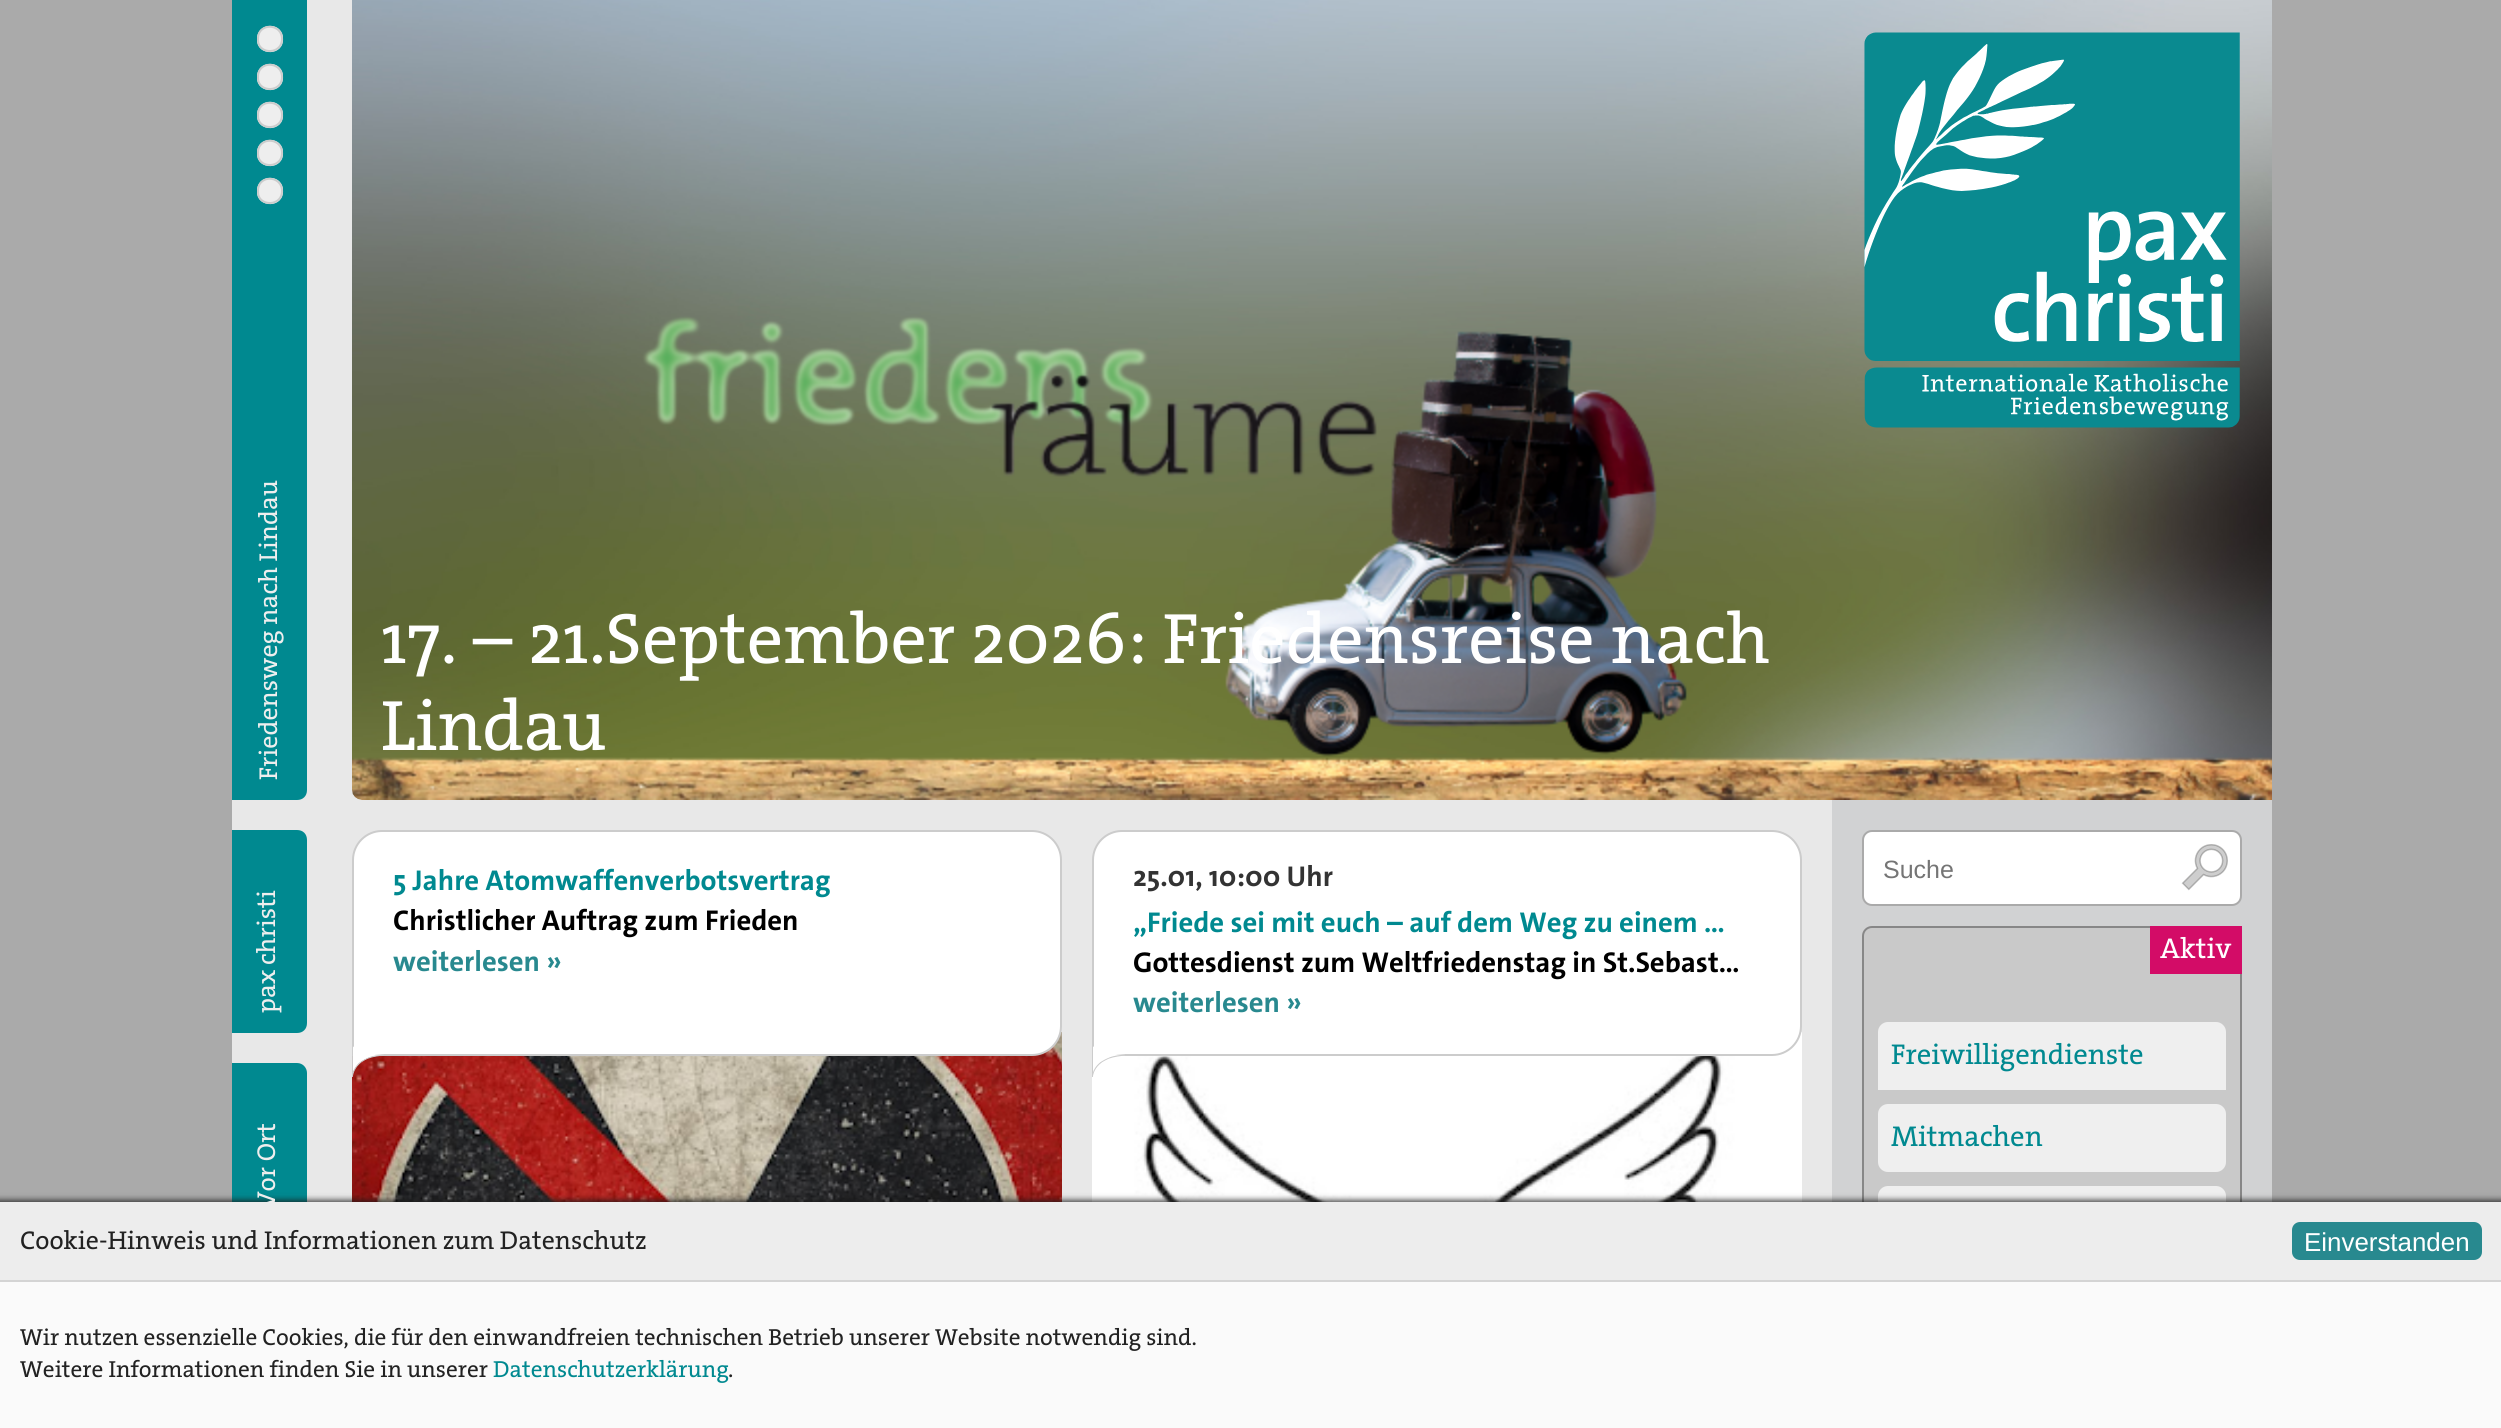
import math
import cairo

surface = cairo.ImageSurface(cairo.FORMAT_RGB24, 2501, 1428)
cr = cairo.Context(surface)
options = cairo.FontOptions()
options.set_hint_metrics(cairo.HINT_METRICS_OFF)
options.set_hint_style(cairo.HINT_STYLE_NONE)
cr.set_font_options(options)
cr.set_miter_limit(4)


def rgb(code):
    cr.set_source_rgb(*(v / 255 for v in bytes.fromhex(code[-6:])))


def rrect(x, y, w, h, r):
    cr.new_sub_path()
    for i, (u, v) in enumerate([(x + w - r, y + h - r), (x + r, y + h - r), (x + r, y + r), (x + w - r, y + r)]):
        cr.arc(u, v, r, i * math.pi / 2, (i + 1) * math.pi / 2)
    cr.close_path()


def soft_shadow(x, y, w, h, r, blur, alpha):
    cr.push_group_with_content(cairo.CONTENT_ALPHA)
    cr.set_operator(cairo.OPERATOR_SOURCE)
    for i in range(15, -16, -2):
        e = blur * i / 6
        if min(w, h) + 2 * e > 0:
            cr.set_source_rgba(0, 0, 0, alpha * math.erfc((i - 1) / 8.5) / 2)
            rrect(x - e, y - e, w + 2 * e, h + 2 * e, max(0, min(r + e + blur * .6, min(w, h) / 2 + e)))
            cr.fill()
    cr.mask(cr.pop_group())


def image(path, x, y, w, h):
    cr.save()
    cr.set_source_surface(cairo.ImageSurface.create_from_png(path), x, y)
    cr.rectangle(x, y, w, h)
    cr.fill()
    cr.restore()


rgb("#aaaaaa")
cr.paint()
rgb("#e8e8e8")
cr.rectangle(232, 0, 1600, 1202)
cr.fill()
rgb("#ffffff")
cr.new_path()
cr.move_to(352, 0)
cr.line_to(2272, 0)
cr.line_to(2272, 800)
cr.line_to(362, 800)
cr.curve_to(356.5, 800, 352, 795.5, 352, 790)
cr.close_path()
cr.fill()
image("img/2.png", 352, 0, 1920, 800)
image("img/1.png", 1864, 32, 376, 396)
cr.save()
cr.rectangle(232, 0, 2040, 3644)
cr.clip()
rgb("#008990")
cr.new_path()
cr.move_to(231, 800)
cr.line_to(231, 0)
cr.line_to(307, 0)
cr.line_to(307, 790)
cr.curve_to(307, 796, 303, 800, 297, 800)
cr.close_path()
cr.fill()
cr.restore()
rgb("#eeeeee")
cr.new_path()
cr.move_to(257, 40)
cr.curve_to(257, 37.5, 257, 35.5, 258, 33.5)
cr.curve_to(261.5, 25, 273.5, 23.5, 279.5, 29.5)
cr.curve_to(282, 32, 283, 35, 283, 38)
cr.curve_to(284.5, 56.5, 257, 56.5, 257, 40)
cr.close_path()
cr.fill()
cr.new_path()
cr.move_to(258, 40)
cr.curve_to(258, 38, 258, 36, 259, 33.5)
cr.curve_to(263.5, 23, 281, 25, 282, 38)
cr.curve_to(283, 55, 258, 55, 258, 40)
cr.close_path()
rgb("#cccccc")
cr.stroke()
rgb("#eeeeee")
cr.new_path()
cr.move_to(257, 78)
cr.curve_to(257, 75.5, 257, 73.5, 258, 71.5)
cr.curve_to(261.5, 63, 273.5, 61.5, 279.5, 67.5)
cr.curve_to(282, 70, 283, 73, 283, 76)
cr.curve_to(284.5, 94.5, 257, 94.5, 257, 78)
cr.close_path()
cr.fill()
cr.new_path()
cr.move_to(258, 78)
cr.curve_to(258, 76, 258, 74, 259, 71.5)
cr.curve_to(263.5, 61, 281, 63, 282, 76)
cr.curve_to(283, 93, 258, 93, 258, 78)
cr.close_path()
rgb("#cccccc")
cr.stroke()
rgb("#eeeeee")
cr.new_path()
cr.move_to(257, 116)
cr.curve_to(257, 113.5, 257, 111.5, 258, 109.5)
cr.curve_to(261.5, 101, 273.5, 99.5, 279.5, 105.5)
cr.curve_to(282, 108, 283, 111, 283, 114)
cr.curve_to(284.5, 132.5, 257, 132.5, 257, 116)
cr.close_path()
cr.fill()
cr.new_path()
cr.move_to(258, 116)
cr.curve_to(258, 114, 258, 112, 259, 109.5)
cr.curve_to(263.5, 99, 281, 101, 282, 114)
cr.curve_to(283, 131, 258, 131, 258, 116)
cr.close_path()
rgb("#cccccc")
cr.stroke()
rgb("#eeeeee")
cr.new_path()
cr.move_to(257, 154)
cr.curve_to(257, 151.5, 257, 149.5, 258, 147.5)
cr.curve_to(261.5, 139, 273.5, 137.5, 279.5, 143.5)
cr.curve_to(282, 146, 283, 149, 283, 152)
cr.curve_to(284.5, 170.5, 257, 170.5, 257, 154)
cr.close_path()
cr.fill()
cr.new_path()
cr.move_to(258, 154)
cr.curve_to(258, 152, 258, 150, 259, 147.5)
cr.curve_to(263.5, 137, 281, 139, 282, 152)
cr.curve_to(283, 169, 258, 169, 258, 154)
cr.close_path()
rgb("#cccccc")
cr.stroke()
rgb("#eeeeee")
cr.new_path()
cr.move_to(257, 192)
cr.curve_to(257, 189.5, 257, 187.5, 258, 185.5)
cr.curve_to(261.5, 177, 273.5, 175.5, 279.5, 181.5)
cr.curve_to(282, 184, 283, 187, 283, 190)
cr.curve_to(284.5, 208.5, 257, 208.5, 257, 192)
cr.close_path()
cr.fill()
cr.new_path()
cr.move_to(258, 192)
cr.curve_to(258, 190, 258, 188, 259, 185.5)
cr.curve_to(263.5, 175, 281, 177, 282, 190)
cr.curve_to(283, 207, 258, 207, 258, 192)
cr.close_path()
rgb("#cccccc")
cr.stroke()
cr.save()
cr.rectangle(232, 0, 2040, 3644)
cr.clip()
rgb("#008990")
cr.new_path()
cr.move_to(229, 1033)
cr.line_to(229, 830)
cr.line_to(297, 830)
cr.curve_to(303, 830, 307, 834, 307, 840)
cr.line_to(307, 1023)
cr.curve_to(307, 1029, 303, 1033, 297, 1033)
cr.close_path()
cr.fill()
cr.new_path()
cr.move_to(229, 1229)
cr.line_to(229, 1063)
cr.line_to(297, 1063)
cr.curve_to(303, 1063, 307, 1068, 307, 1073)
cr.line_to(307, 1219)
cr.curve_to(307, 1225, 303, 1229, 297, 1229)
cr.close_path()
cr.fill()
cr.restore()
rgb("#d1d2d3")
cr.rectangle(1832, 800, 440, 402)
cr.fill()
rgb("#ffffff")
rrect(1863, 831, 378, 74, 9)
cr.fill_preserve()
rgb("#aaaaaa")
cr.stroke()
image("img/3.png", 2181, 844, 47, 47)
rgb("#c9c9c9")
cr.new_path()
cr.move_to(1872, 927)
cr.line_to(2241, 927)
cr.line_to(2241, 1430)
cr.curve_to(2241, 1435, 2237, 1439, 2232, 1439)
cr.line_to(1863, 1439)
cr.line_to(1863, 936)
cr.curve_to(1863, 931, 1867, 927, 1872, 927)
cr.close_path()
cr.fill_preserve()
rgb("#878787")
cr.stroke()
rgb("#d30c67")
cr.rectangle(2150, 926, 92, 48)
cr.fill()
rgb("#efefef")
cr.new_path()
cr.move_to(1888, 1022)
cr.line_to(2216, 1022)
cr.curve_to(2221.5, 1022, 2226, 1026.5, 2226, 1032)
cr.line_to(2226, 1090)
cr.line_to(1878, 1090)
cr.line_to(1878, 1032)
cr.curve_to(1878, 1026.5, 1882.5, 1022, 1888, 1022)
cr.close_path()
cr.fill()
rrect(1878, 1104, 348, 68, 10)
cr.fill()
rrect(1878, 1186, 348, 110, 10)
cr.fill()
image("img/5.png", 352, 1032, 710, 170)
rgb("#ffffff")
cr.new_path()
cr.move_to(382, 831)
cr.line_to(1032, 831)
cr.curve_to(1048, 831, 1061, 844, 1061, 860)
cr.line_to(1061, 1026)
cr.curve_to(1061, 1042, 1048, 1055, 1032, 1055)
cr.line_to(353, 1055)
cr.line_to(353, 860)
cr.curve_to(353, 844, 366, 831, 382, 831)
cr.close_path()
cr.fill_preserve()
rgb("#cccccc")
cr.stroke()
image("img/4.png", 352, 1046, 32, 31)
image("img/7.png", 1092, 1032, 710, 170)
rgb("#ffffff")
cr.new_path()
cr.move_to(1122, 831)
cr.line_to(1772, 831)
cr.curve_to(1788, 831, 1801, 844, 1801, 860)
cr.line_to(1801, 1026)
cr.curve_to(1801, 1042, 1788, 1055, 1772, 1055)
cr.line_to(1093, 1055)
cr.line_to(1093, 860)
cr.curve_to(1093, 844, 1106, 831, 1122, 831)
cr.close_path()
cr.fill_preserve()
rgb("#cccccc")
cr.stroke()
image("img/6.png", 1092, 1046, 33, 31)
rgb("#191919")
soft_shadow(-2, 1200, 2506, 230, 0, 3, 0.8)
rgb("#fafafa")
cr.rectangle(0, 1282, 2501, 146)
cr.fill()
rgb("#d4d4d4")
cr.rectangle(0, 1280, 2501, 2)
cr.fill()
cr.select_font_face("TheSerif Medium")
cr.set_font_size(26)
rgb("#eeeeee")
cr.save()
cr.translate(277, 780)
cr.rotate(-90 * math.pi / 180)
cr.move_to(0, 0)
cr.show_text("Friedensweg nach Lindau")
cr.restore()
cr.save()
cr.translate(275, 965)
cr.rotate(-90 * math.pi / 180)
cr.move_to(0, 0)
cr.show_text("christi")
cr.restore()
cr.save()
cr.translate(275, 1013)
cr.rotate(-90 * math.pi / 180)
cr.move_to(0, 0)
cr.show_text("pax")
cr.restore()
cr.save()
cr.translate(275, 1209)
cr.rotate(-90 * math.pi / 180)
cr.move_to(0, 0)
cr.show_text("Vor Ort")
cr.restore()
cr.set_font_size(72)
rgb("#ffffff")
cr.move_to(381, 663)
cr.show_text("17. – 21.September 2026: Friedensreise nach")
cr.move_to(381, 750)
cr.show_text("Lindau")
cr.select_font_face("Liberation Sans")
cr.set_font_size(25)
rgb("#757575")
cr.move_to(1883, 878)
cr.show_text("Suche")
cr.select_font_face("TheSerif Medium")
cr.set_font_size(28.8)
rgb("#ffffff")
cr.move_to(2160, 958)
cr.show_text("Aktiv")
rgb("#008990")
cr.move_to(1891, 1064)
cr.show_text("Freiwilligendienste")
cr.move_to(1891, 1146)
cr.show_text("Mitmachen")
cr.select_font_face("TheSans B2", cairo.FONT_SLANT_NORMAL, cairo.FONT_WEIGHT_BOLD)
cr.move_to(393, 890)
cr.show_text("5 Jahre Atomwaffenverbotsvertrag")
rgb("#000000")
cr.move_to(393, 930)
cr.show_text("Christlicher Auftrag zum Frieden")
rgb("#28898f")
cr.move_to(393, 971)
cr.show_text("weiterlesen »")
rgb("#333333")
cr.move_to(1133, 886)
cr.show_text("25.01, 10:00 Uhr")
rgb("#008990")
cr.move_to(1133, 932)
cr.show_text("„Friede sei mit euch – auf dem Weg zu einem …")
rgb("#000000")
cr.move_to(1133, 972)
cr.show_text("Gottesdienst zum Weltfriedenstag in St.Sebast…")
rgb("#28898f")
cr.move_to(1133, 1012)
cr.show_text("weiterlesen »")
rgb("#ededed")
cr.rectangle(0, 1202, 2501, 78)
cr.fill()
cr.select_font_face("TheSerif Medium")
cr.set_font_size(25.9)
rgb("#222222")
cr.move_to(20, 1249)
cr.show_text("Cookie-Hinweis und Informationen zum Datenschutz")
rgb("#28898f")
rrect(2292, 1222, 190, 38, 8)
cr.fill()
cr.select_font_face("Liberation Sans")
rgb("#ffffff")
cr.move_to(2304, 1251)
cr.show_text("Einverstanden")
cr.select_font_face("TheSerif Medium")
cr.set_font_size(23.33)
rgb("#222222")
cr.move_to(20, 1345)
cr.show_text("Wir nutzen essenzielle Cookies, die für den einwandfreien technischen Betrieb unserer Website notwendig sind.")
cr.move_to(20, 1377)
cr.show_text("Weitere Informationen finden Sie in unserer")
rgb("#008990")
cr.move_to(493, 1377)
cr.show_text("Datenschutzerklärung")
rgb("#222222")
cr.move_to(728, 1377)
cr.show_text(".")
surface.write_to_png("page.png")
